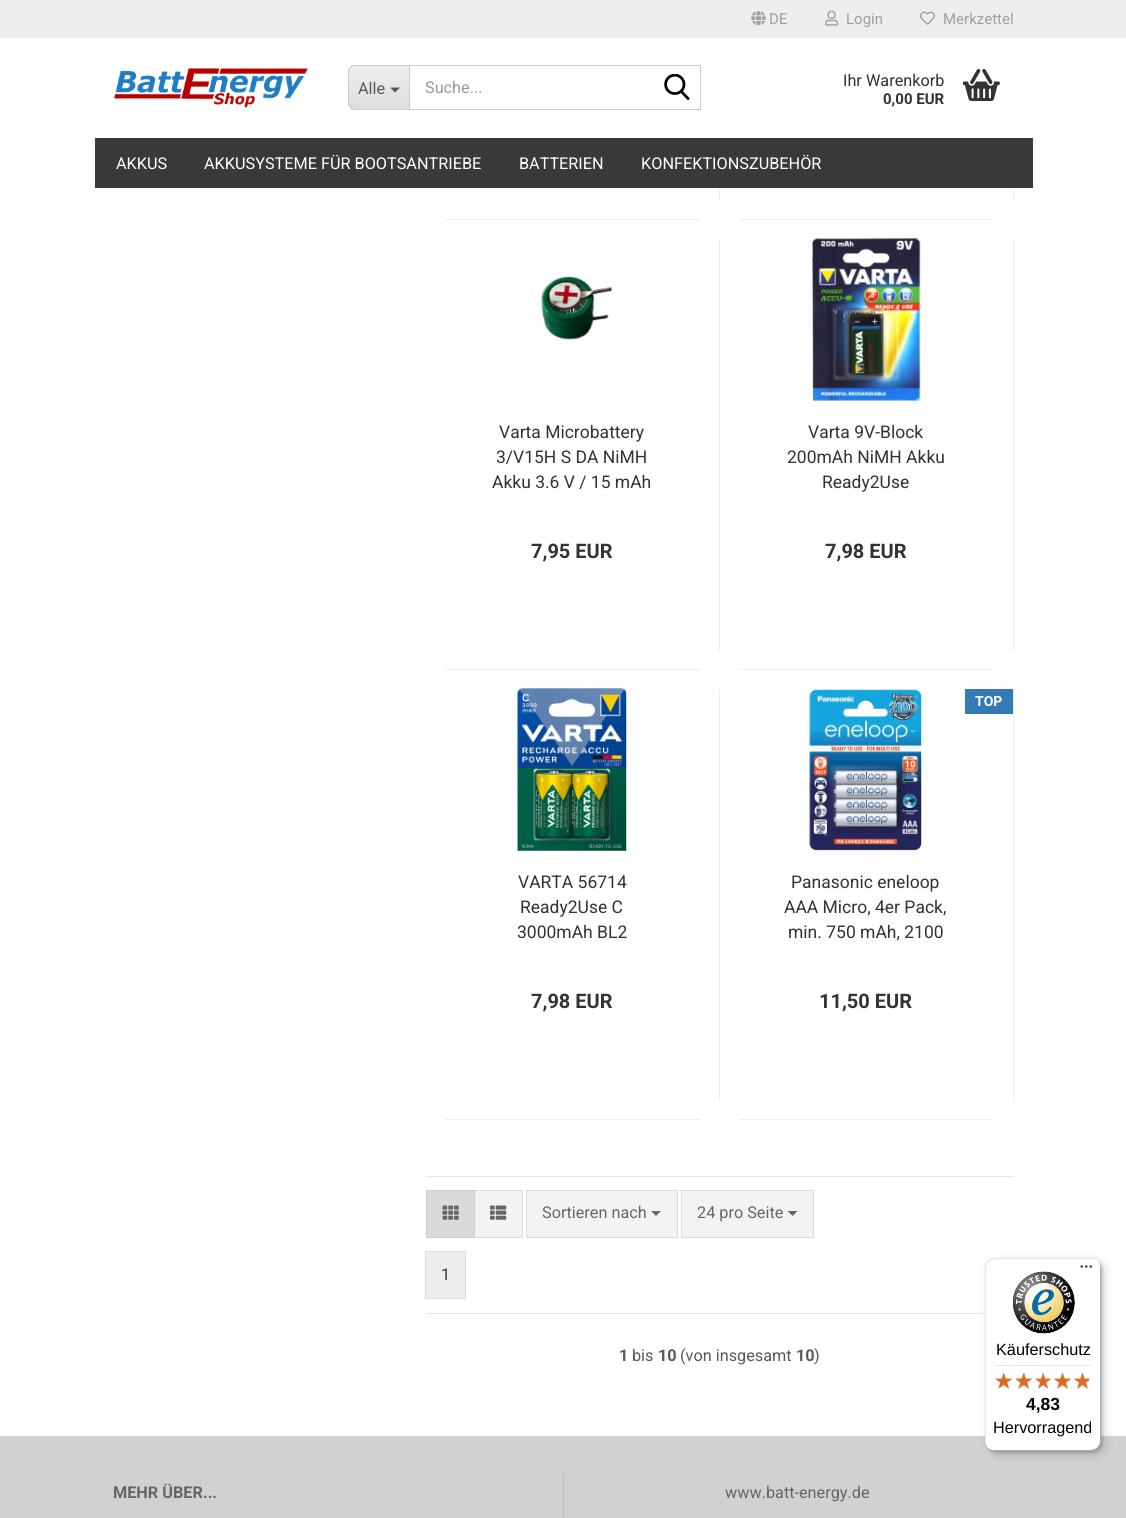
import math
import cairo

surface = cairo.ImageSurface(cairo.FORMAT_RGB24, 1126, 1518)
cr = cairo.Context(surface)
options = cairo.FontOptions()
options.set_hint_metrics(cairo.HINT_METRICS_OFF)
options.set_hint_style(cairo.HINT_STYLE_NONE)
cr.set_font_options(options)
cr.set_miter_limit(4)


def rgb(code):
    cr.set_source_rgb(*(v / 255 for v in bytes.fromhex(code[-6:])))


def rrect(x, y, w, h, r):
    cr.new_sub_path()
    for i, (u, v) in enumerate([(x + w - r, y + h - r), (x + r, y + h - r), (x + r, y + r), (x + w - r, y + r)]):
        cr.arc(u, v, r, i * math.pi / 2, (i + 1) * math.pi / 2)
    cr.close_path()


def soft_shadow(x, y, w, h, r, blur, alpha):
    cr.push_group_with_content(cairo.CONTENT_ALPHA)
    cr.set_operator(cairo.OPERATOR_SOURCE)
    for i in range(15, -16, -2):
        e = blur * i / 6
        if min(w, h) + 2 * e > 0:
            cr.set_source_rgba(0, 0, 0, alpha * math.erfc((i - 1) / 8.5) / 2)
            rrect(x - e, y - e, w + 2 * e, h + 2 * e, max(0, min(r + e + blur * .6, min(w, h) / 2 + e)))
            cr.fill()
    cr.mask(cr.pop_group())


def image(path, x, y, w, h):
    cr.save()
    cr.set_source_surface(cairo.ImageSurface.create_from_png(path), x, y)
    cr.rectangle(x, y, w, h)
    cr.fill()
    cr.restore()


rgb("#ffffff")
cr.paint()
rgb("#eeeeee")
cr.rectangle(0, 0, 1126, 38)
cr.fill()
image("img/1.png", 751, 10, 15, 16)
image("img/2.png", 825, 10, 14, 16)
image("img/3.png", 920, 11, 15, 14)
image("img/4.png", 114, 68, 194, 40)
cr.save()
cr.new_path()
cr.move_to(356, 65)
cr.line_to(409, 65)
cr.line_to(409, 110)
cr.line_to(356, 110)
cr.curve_to(351.5, 110, 348, 106.5, 348, 102)
cr.line_to(348, 73)
cr.curve_to(348, 68.5, 351.5, 65, 356, 65)
cr.close_path()
cr.clip()
gradient = cairo.LinearGradient(379, 66, 379, 109)
gradient.add_color_stop_rgba(0, 0.933, 0.933, 0.933, 1)
gradient.add_color_stop_rgba(1, 0.871, 0.871, 0.871, 1)
cr.set_source(gradient)
cr.rectangle(348, 66, 61, 43)
cr.fill()
cr.restore()
rgb("#cccccc")
cr.set_fill_rule(cairo.FILL_RULE_EVEN_ODD)
cr.new_path()
cr.move_to(355, 65)
cr.line_to(409, 65)
cr.line_to(409, 110)
cr.line_to(355, 110)
cr.curve_to(351, 110, 348, 107, 348, 102)
cr.line_to(348, 72)
cr.curve_to(348, 68, 351, 65, 355, 65)
cr.close_path()
cr.move_to(355, 66)
cr.line_to(409, 66)
cr.line_to(409, 109)
cr.line_to(355, 109)
cr.curve_to(352, 109, 349, 106, 349, 102)
cr.line_to(349, 72)
cr.curve_to(349, 69, 352, 66, 355, 66)
cr.close_path()
cr.fill()
rgb("#555555")
cr.set_fill_rule(cairo.FILL_RULE_WINDING)
cr.new_path()
cr.move_to(390, 87.5)
cr.line_to(400, 87.5)
cr.line_to(395, 92.5)
cr.close_path()
cr.fill()
cr.rectangle(409.5, 65.5, 291, 44)
rgb("#cccccc")
cr.set_line_width(1)
cr.stroke()
image("img/5.png", 664, 74, 26, 26)
image("img/6.png", 963, 69, 37, 32)
for x, y, w, h, color in [
    (95, 138, 938, 50, "#393939"),
    (719, 188, 1, 13, "#eeeeee"),
    (445, 219, 255, 1, "#eeeeee"),
    (1013, 188, 1, 13, "#eeeeee"),
    (739, 219, 255, 1, "#eeeeee"),
    (719, 239, 1, 412, "#eeeeee"),
    (445, 669, 255, 1, "#eeeeee"),
]:
    rgb(color)
    cr.rectangle(x, y, w, h)
    cr.fill()
image("img/7.png", 541, 276, 71, 64)
cr.rectangle(1013, 239, 1, 412)
cr.fill()
cr.rectangle(739, 669, 255, 1)
cr.fill()
image("img/8.png", 811, 238, 110, 163)
cr.rectangle(719, 689, 1, 412)
cr.fill()
cr.rectangle(445, 1119, 255, 1)
cr.fill()
image("img/9.png", 517, 688, 110, 163)
cr.rectangle(1013, 689, 1, 412)
cr.fill()
cr.rectangle(739, 1119, 255, 1)
cr.fill()
image("img/10.png", 808, 688, 115, 163)
for x, y, w, h, color in [
    (965, 689, 48, 25, "#337ab7"),
    (426, 1176, 588, 1, "#e7e7e7"),
    (426, 1313, 559, 1, "#e7e7e7"),
]:
    rgb(color)
    cr.rectangle(x, y, w, h)
    cr.fill()
rgb("#f3f3f3")
cr.rectangle(474.5, 1190.5, 48, 47)
cr.fill_preserve()
rgb("#dddddd")
cr.stroke()
rgb("#dadada")
cr.rectangle(426.5, 1190.5, 48, 47)
cr.fill_preserve()
rgb("#cccccc")
cr.stroke()
image("img/11.png", 442, 1205, 17, 15)
image("img/12.png", 490, 1205, 17, 15)
rgb("#f3f3f3")
cr.rectangle(526.5, 1190.5, 151, 47)
cr.fill_preserve()
rgb("#dddddd")
cr.stroke()
rgb("#666666")
cr.new_path()
cr.move_to(651, 1211)
cr.line_to(661, 1211)
cr.line_to(656, 1216)
cr.close_path()
cr.fill()
rgb("#f3f3f3")
cr.rectangle(681.5, 1190.5, 132, 47)
cr.fill_preserve()
rgb("#dddddd")
cr.stroke()
rgb("#666666")
cr.new_path()
cr.move_to(787.5, 1211)
cr.line_to(797.5, 1211)
cr.line_to(792.5, 1216)
cr.close_path()
cr.fill()
rgb("#eeeeee")
cr.rectangle(425.5, 1251.5, 40, 47)
cr.fill_preserve()
rgb("#dddddd")
cr.stroke()
rgb("#d1d1d1")
cr.rectangle(0, 1436, 1126, 82)
cr.fill()
rgb("#bbbbbb")
cr.rectangle(563, 1474, 1, 44)
cr.fill()
rgb("#000000")
soft_shadow(989, 1261, 116, 194, 10, 5, 0.15)
soft_shadow(986, 1259, 117, 194, 10, 1, 0.15)
rgb("#ffffff")
rrect(985, 1258, 116, 193, 10)
cr.fill()
cr.set_source_rgba(0, 0, 0, 0.1)
cr.new_path()
cr.move_to(996, 1259)
cr.line_to(1092, 1259)
cr.curve_to(1094, 1259, 1096, 1259, 1097, 1260)
cr.curve_to(1096, 1259, 1093, 1258, 1091, 1258)
cr.line_to(995, 1258)
cr.curve_to(989, 1258, 985, 1262, 985, 1268)
cr.line_to(985, 1441)
cr.curve_to(985, 1444, 986, 1447, 988, 1449)
cr.curve_to(987, 1447, 986, 1445, 986, 1442)
cr.line_to(986, 1269)
cr.curve_to(986, 1263, 991, 1259, 996, 1259)
cr.close_path()
cr.fill()
cr.set_source_rgba(0, 0, 0, 0.2)
cr.new_path()
cr.move_to(989, 1449)
cr.curve_to(990, 1450, 993, 1451, 995, 1451)
cr.line_to(1091, 1451)
cr.curve_to(1097, 1451, 1101, 1447, 1101, 1441)
cr.line_to(1101, 1268)
cr.curve_to(1101, 1266, 1100, 1264, 1099, 1262)
cr.line_to(1100, 1266)
cr.line_to(1100, 1440)
cr.curve_to(1100, 1446, 1096, 1450, 1090, 1450)
cr.line_to(994, 1450)
cr.curve_to(992, 1450, 990, 1450, 989, 1449)
cr.close_path()
cr.fill()
cr.set_source_rgba(0.196, 0.196, 0.196, 0.2)
cr.new_path()
cr.move_to(987, 1447)
cr.curve_to(989, 1450, 992, 1451, 995, 1451)
cr.line_to(1091, 1451)
cr.curve_to(1097, 1451, 1101, 1447, 1101, 1441)
cr.line_to(1101, 1268)
cr.curve_to(1101, 1266, 1100, 1263, 1099, 1262)
cr.curve_to(1100, 1263, 1100, 1265, 1100, 1267)
cr.line_to(1100, 1440)
cr.curve_to(1100, 1446, 1096, 1450, 1090, 1450)
cr.line_to(994, 1450)
cr.curve_to(992, 1450, 989, 1449, 987, 1447)
cr.close_path()
cr.fill()
image("img/13.png", 1080, 1265, 13, 3)
cr.set_source_rgba(1, 1, 1, 0.3)
cr.new_path()
cr.move_to(1091, 1451)
cr.curve_to(1096.5, 1451, 1101, 1446.5, 1101, 1441)
cr.curve_to(1101, 1446, 1096, 1451, 1091, 1451)
cr.close_path()
cr.fill()
image("img/14.png", 1013, 1271, 62, 63)
rgb("#e5e5e5")
cr.rectangle(995, 1365, 96, 1)
cr.fill()
image("img/15.png", 995, 1373, 17, 16)
image("img/16.png", 1015, 1372, 17, 17)
image("img/17.png", 1035, 1373, 16, 16)
image("img/18.png", 1054, 1372, 17, 17)
image("img/19.png", 1074, 1373, 17, 16)
image("img/20.png", 995, 1372, 17, 17)
image("img/21.png", 1015, 1372, 18, 17)
image("img/22.png", 1035, 1372, 16, 17)
image("img/23.png", 1053, 1372, 18, 17)
image("img/24.png", 1074, 1372, 15, 17)
cr.select_font_face("Roboto")
cr.set_font_size(15)
rgb("#9f9f9f")
for x, y, s in [
    (769, 24, "DE"),
    (846, 24, "Login"),
    (943, 24, "Merkzettel"),
]:
    cr.move_to(x, y)
    cr.show_text(s)
cr.set_font_size(16.25)
rgb("#595959")
cr.move_to(358, 94)
cr.show_text("Alle")
rgb("#999999")
cr.move_to(425, 93)
cr.show_text("Suche...")
rgb("#333333")
cr.move_to(843, 86)
cr.show_text("Ihr Warenkorb")
cr.select_font_face("Roboto", cairo.FONT_SLANT_NORMAL, cairo.FONT_WEIGHT_BOLD)
cr.set_font_size(15)
cr.move_to(883, 104)
cr.show_text("0,00 EUR")
cr.select_font_face("Roboto")
cr.set_font_size(16.25)
rgb("#ffffff")
for x, y, s in [
    (116, 169, "AKKUS"),
    (204, 169, "AKKUSYSTEME FÜR BOOTSANTRIEBE"),
    (519, 169, "BATTERIEN"),
    (641, 169, "KONFEKTIONSZUBEHÖR"),
]:
    cr.move_to(x, y)
    cr.show_text(s)
cr.set_font_size(17.5)
rgb("#333333")
for x, y, s in [
    (499, 438, "Varta Microbattery"),
    (496, 463, "3/V15H S DA NiMH"),
    (492, 488, "Akku 3.6 V / 15 mAh"),
]:
    cr.move_to(x, y)
    cr.show_text(s)
cr.select_font_face("Roboto", cairo.FONT_SLANT_NORMAL, cairo.FONT_WEIGHT_BOLD)
cr.set_font_size(20)
cr.move_to(531, 558)
cr.show_text("7,95 EUR")
cr.select_font_face("Roboto")
cr.set_font_size(17.5)
for x, y, s in [
    (808, 438, "Varta 9V-Block"),
    (787, 463, "200mAh NiMH Akku"),
    (822, 488, "Ready2Use"),
]:
    cr.move_to(x, y)
    cr.show_text(s)
cr.select_font_face("Roboto", cairo.FONT_SLANT_NORMAL, cairo.FONT_WEIGHT_BOLD)
cr.set_font_size(20)
cr.move_to(825, 558)
cr.show_text("7,98 EUR")
cr.select_font_face("Roboto")
cr.set_font_size(17.5)
for x, y, s in [
    (518, 888, "VARTA 56714"),
    (520, 913, "Ready2Use C"),
    (517, 938, "3000mAh BL2"),
]:
    cr.move_to(x, y)
    cr.show_text(s)
cr.select_font_face("Roboto", cairo.FONT_SLANT_NORMAL, cairo.FONT_WEIGHT_BOLD)
cr.set_font_size(20)
cr.move_to(531, 1008)
cr.show_text("7,98 EUR")
cr.set_font_size(14)
rgb("#ffffff")
cr.move_to(975, 706)
cr.show_text("TOP")
cr.select_font_face("Roboto")
cr.set_font_size(17.5)
rgb("#333333")
for x, y, s in [
    (791, 888, "Panasonic eneloop"),
    (784, 913, "AAA Micro, 4er Pack,"),
    (788, 938, "min. 750 mAh, 2100"),
]:
    cr.move_to(x, y)
    cr.show_text(s)
cr.select_font_face("Roboto", cairo.FONT_SLANT_NORMAL, cairo.FONT_WEIGHT_BOLD)
cr.set_font_size(20)
cr.move_to(819, 1008)
cr.show_text("11,50 EUR")
cr.select_font_face("Roboto")
cr.set_font_size(16.25)
rgb("#666666")
cr.move_to(542, 1218)
cr.show_text("Sortieren nach")
cr.move_to(697, 1218)
cr.show_text("24 pro Seite")
rgb("#333333")
cr.move_to(441, 1280)
cr.show_text("1")
cr.select_font_face("Roboto", cairo.FONT_SLANT_NORMAL, cairo.FONT_WEIGHT_BOLD)
rgb("#595959")
cr.move_to(619, 1361)
cr.show_text("1")
cr.select_font_face("Roboto")
cr.move_to(632, 1361)
cr.show_text("bis")
cr.select_font_face("Roboto", cairo.FONT_SLANT_NORMAL, cairo.FONT_WEIGHT_BOLD)
cr.move_to(658, 1361)
cr.show_text("10")
cr.select_font_face("Roboto")
cr.move_to(680, 1361)
cr.show_text("(von insgesamt")
cr.select_font_face("Roboto", cairo.FONT_SLANT_NORMAL, cairo.FONT_WEIGHT_BOLD)
cr.move_to(796, 1361)
cr.show_text("10")
cr.select_font_face("Roboto")
cr.move_to(814, 1361)
cr.show_text(")")
cr.select_font_face("Roboto", cairo.FONT_SLANT_NORMAL, cairo.FONT_WEIGHT_BOLD)
rgb("#666666")
cr.move_to(113, 1498)
cr.show_text("MEHR ÜBER...")
cr.select_font_face("Roboto")
cr.move_to(725, 1498)
cr.show_text("www.batt-energy.de")
cr.select_font_face("Liberation Sans")
rgb("#000000")
cr.move_to(996, 1355)
cr.show_text("Käuferschutz")
cr.select_font_face("Liberation Sans", cairo.FONT_SLANT_NORMAL, cairo.FONT_WEIGHT_BOLD)
cr.set_font_size(17.5)
cr.move_to(1026, 1410)
cr.show_text("4,83")
cr.select_font_face("Liberation Sans")
cr.set_font_size(16.25)
cr.move_to(993, 1433)
cr.show_text("Hervorragend")
surface.write_to_png("page.png")
